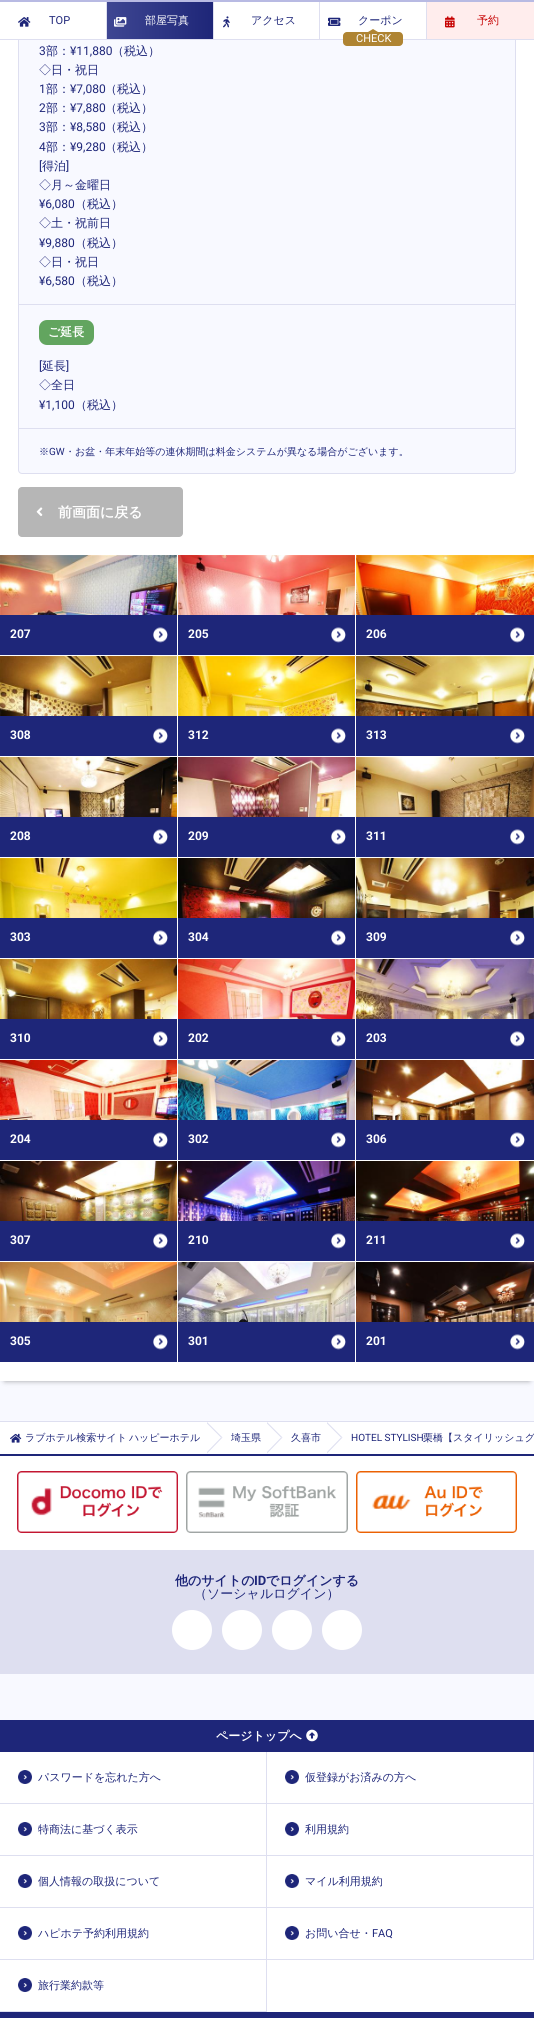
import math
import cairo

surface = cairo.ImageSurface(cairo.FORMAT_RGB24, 534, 2018)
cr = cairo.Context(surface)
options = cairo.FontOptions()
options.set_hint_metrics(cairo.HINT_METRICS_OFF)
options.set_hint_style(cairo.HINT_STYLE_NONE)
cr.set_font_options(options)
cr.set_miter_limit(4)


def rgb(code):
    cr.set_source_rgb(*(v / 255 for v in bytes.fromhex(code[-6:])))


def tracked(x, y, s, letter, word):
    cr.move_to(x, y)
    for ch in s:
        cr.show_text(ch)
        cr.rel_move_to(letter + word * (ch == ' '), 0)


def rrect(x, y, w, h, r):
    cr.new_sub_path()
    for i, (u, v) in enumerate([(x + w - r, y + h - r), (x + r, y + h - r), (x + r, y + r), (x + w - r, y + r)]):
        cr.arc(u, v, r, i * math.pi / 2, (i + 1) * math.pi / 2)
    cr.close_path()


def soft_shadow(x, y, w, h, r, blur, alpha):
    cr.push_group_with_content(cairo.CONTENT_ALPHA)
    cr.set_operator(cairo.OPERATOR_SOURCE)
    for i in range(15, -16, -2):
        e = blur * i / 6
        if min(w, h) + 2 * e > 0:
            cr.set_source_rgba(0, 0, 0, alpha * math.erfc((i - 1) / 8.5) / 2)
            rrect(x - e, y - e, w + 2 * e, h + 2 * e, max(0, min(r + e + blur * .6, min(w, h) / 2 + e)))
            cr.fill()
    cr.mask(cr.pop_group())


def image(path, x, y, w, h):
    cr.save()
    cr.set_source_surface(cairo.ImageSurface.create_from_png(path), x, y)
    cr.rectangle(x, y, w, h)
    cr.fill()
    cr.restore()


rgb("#ffffff")
cr.paint()
rgb("#f8f9ff")
cr.rectangle(0, 1381, 534, 40)
cr.fill()
rgb("#000000")
soft_shadow(5, -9, 524, 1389, 0, 3, 0.5)
rgb("#ffffff")
cr.rectangle(0, 40, 534, 1341)
cr.fill()
rgb("#f8f9ff")
rrect(18.5, -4.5, 497, 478, 3.5)
cr.fill_preserve()
rgb("#dedff0")
cr.set_line_width(1)
cr.stroke()
for x, y, w, h, color in [
    (0, 2, 426, 37, "#ffffff"),
    (0, 0, 534, 2, "#b8bae3"),
    (106, 2, 1, 38, "#dedff0"),
    (0, 39, 107, 1, "#dedff0"),
]:
    rgb(color)
    cr.rectangle(x, y, w, h)
    cr.fill()
image("img/1.png", 18, 17, 13, 10)
gradient = cairo.LinearGradient(107, 21, 213, 20)
gradient.add_color_stop_rgba(0, 0.243, 0.275, 0.573, 1)
gradient.add_color_stop_rgba(1, 0.118, 0.149, 0.471, 1)
cr.set_source(gradient)
cr.rectangle(107, 2, 106, 37)
cr.fill()
rgb("#dedff0")
cr.rectangle(213, 2, 1, 38)
cr.fill()
cr.rectangle(107, 39, 107, 1)
cr.fill()
image("img/2.png", 114, 17, 13, 10)
cr.rectangle(319, 2, 1, 38)
cr.fill()
cr.rectangle(214, 39, 106, 1)
cr.fill()
image("img/3.png", 223, 16, 7, 12)
cr.rectangle(426, 2, 1, 38)
cr.fill()
cr.rectangle(320, 39, 214, 1)
cr.fill()
image("img/4.png", 328, 17, 13, 9)
rgb("#af8432")
rrect(343, 32, 60, 14, 4)
cr.fill()
cr.new_path()
cr.move_to(378, 32)
cr.line_to(368, 32)
cr.line_to(373, 29)
cr.close_path()
cr.fill()
rgb("#ffeded")
cr.rectangle(427, 2, 107, 37)
cr.fill()
image("img/5.png", 445, 16, 10, 12)
rgb("#dedff0")
cr.rectangle(19, 304, 496, 1)
cr.fill()
cr.rectangle(19, 428, 496, 1)
cr.fill()
rgb("#62a55f")
rrect(39, 320, 55, 25, 8)
cr.fill()
rgb("#b6b6b6")
rrect(18, 487, 165, 50, 4)
cr.fill()
image("img/6.png", 36, 507, 7, 9)
image("img/7.png", 0, 555, 177, 60)
rgb("#1e2679")
cr.rectangle(0, 615, 177, 40)
cr.fill()
image("img/8.png", 153, 627, 15, 16)
image("img/9.png", 178, 555, 177, 60)
cr.rectangle(178, 615, 177, 40)
cr.fill()
image("img/8.png", 331, 627, 15, 16)
image("img/10.png", 356, 555, 178, 60)
cr.rectangle(356, 615, 178, 40)
cr.fill()
image("img/8.png", 510, 627, 15, 16)
image("img/11.png", 0, 656, 177, 60)
cr.rectangle(0, 716, 177, 40)
cr.fill()
image("img/8.png", 153, 728, 15, 16)
image("img/12.png", 178, 656, 177, 60)
cr.rectangle(178, 716, 177, 40)
cr.fill()
image("img/8.png", 331, 728, 15, 16)
image("img/13.png", 356, 656, 178, 60)
cr.rectangle(356, 716, 178, 40)
cr.fill()
image("img/8.png", 510, 728, 15, 16)
image("img/14.png", 0, 757, 177, 60)
cr.rectangle(0, 817, 177, 40)
cr.fill()
image("img/8.png", 153, 829, 15, 16)
image("img/15.png", 178, 757, 177, 60)
cr.rectangle(178, 817, 177, 40)
cr.fill()
image("img/8.png", 331, 829, 15, 16)
image("img/16.png", 356, 757, 178, 60)
cr.rectangle(356, 817, 178, 40)
cr.fill()
image("img/8.png", 510, 829, 15, 16)
image("img/17.png", 0, 858, 177, 60)
cr.rectangle(0, 918, 177, 40)
cr.fill()
image("img/8.png", 153, 930, 15, 16)
image("img/18.png", 178, 858, 177, 60)
cr.rectangle(178, 918, 177, 40)
cr.fill()
image("img/8.png", 331, 930, 15, 16)
image("img/19.png", 356, 858, 178, 60)
cr.rectangle(356, 918, 178, 40)
cr.fill()
image("img/8.png", 510, 930, 15, 16)
image("img/20.png", 0, 959, 177, 60)
cr.rectangle(0, 1019, 177, 40)
cr.fill()
image("img/8.png", 153, 1031, 15, 16)
image("img/21.png", 178, 959, 177, 60)
cr.rectangle(178, 1019, 177, 40)
cr.fill()
image("img/8.png", 331, 1031, 15, 16)
image("img/22.png", 356, 959, 178, 60)
cr.rectangle(356, 1019, 178, 40)
cr.fill()
image("img/8.png", 510, 1031, 15, 16)
image("img/23.png", 0, 1060, 177, 60)
cr.rectangle(0, 1120, 177, 40)
cr.fill()
image("img/8.png", 153, 1132, 15, 16)
image("img/24.png", 178, 1060, 177, 60)
cr.rectangle(178, 1120, 177, 40)
cr.fill()
image("img/8.png", 331, 1132, 15, 16)
image("img/25.png", 356, 1060, 178, 60)
cr.rectangle(356, 1120, 178, 40)
cr.fill()
image("img/8.png", 510, 1132, 15, 16)
image("img/26.png", 0, 1161, 177, 60)
cr.rectangle(0, 1221, 177, 40)
cr.fill()
image("img/8.png", 153, 1233, 15, 16)
image("img/27.png", 178, 1161, 177, 60)
cr.rectangle(178, 1221, 177, 40)
cr.fill()
image("img/8.png", 331, 1233, 15, 16)
image("img/28.png", 356, 1161, 178, 60)
cr.rectangle(356, 1221, 178, 40)
cr.fill()
image("img/8.png", 510, 1233, 15, 16)
image("img/29.png", 0, 1262, 177, 60)
cr.rectangle(0, 1322, 177, 40)
cr.fill()
image("img/8.png", 153, 1334, 15, 16)
image("img/30.png", 178, 1262, 177, 60)
cr.rectangle(178, 1322, 177, 40)
cr.fill()
image("img/8.png", 331, 1334, 15, 16)
image("img/31.png", 356, 1262, 178, 60)
cr.rectangle(356, 1322, 178, 40)
cr.fill()
image("img/8.png", 510, 1334, 15, 16)
rgb("#dedff0")
cr.rectangle(0, 1421, 534, 1)
cr.fill()
image("img/32.png", 10, 1433, 12, 10)
cr.new_path()
cr.move_to(207, 1422)
cr.line_to(222.5, 1437.5)
cr.line_to(221, 1437.5)
cr.line_to(207, 1423.5)
cr.close_path()
cr.fill()
cr.new_path()
cr.move_to(222.5, 1437.5)
cr.line_to(207, 1453.5)
cr.line_to(207, 1452)
cr.line_to(221, 1437.5)
cr.close_path()
cr.fill()
cr.new_path()
cr.move_to(267, 1422)
cr.line_to(282.5, 1437.5)
cr.line_to(281, 1437.5)
cr.line_to(267, 1423.5)
cr.close_path()
cr.fill()
cr.new_path()
cr.move_to(282.5, 1437.5)
cr.line_to(267, 1453.5)
cr.line_to(267, 1452)
cr.line_to(281, 1437.5)
cr.close_path()
cr.fill()
cr.new_path()
cr.move_to(327, 1422)
cr.line_to(342.5, 1437.5)
cr.line_to(341, 1437.5)
cr.line_to(327, 1423.5)
cr.close_path()
cr.fill()
cr.new_path()
cr.move_to(342.5, 1437.5)
cr.line_to(327, 1453.5)
cr.line_to(327, 1452)
cr.line_to(341, 1437.5)
cr.close_path()
cr.fill()
rgb("#1e2679")
cr.rectangle(0, 1454, 534, 2)
cr.fill()
image("img/33.png", 17, 1471, 161, 62)
image("img/34.png", 186, 1471, 162, 62)
image("img/35.png", 356, 1471, 161, 62)
rgb("#dedff0")
cr.rectangle(0, 1550, 534, 124)
cr.fill()
rgb("#ffffff")
cr.arc(192, 1630, 20, 0, 2 * math.pi)
cr.fill()
cr.arc(242, 1630, 20, 0, 2 * math.pi)
cr.fill()
cr.arc(292, 1630, 20, 0, 2 * math.pi)
cr.fill()
cr.arc(342, 1630, 20, 0, 2 * math.pi)
cr.fill()
rgb("#f8f9ff")
cr.rectangle(0, 1674, 534, 46)
cr.fill()
rgb("#1e2679")
cr.rectangle(0, 1720, 534, 32)
cr.fill()
image("img/36.png", 306, 1729, 12, 13)
image("img/37.png", 18, 1770, 14, 14)
rgb("#dedff0")
cr.rectangle(266, 1752, 1, 260)
cr.fill()
cr.rectangle(0, 1803, 267, 1)
cr.fill()
image("img/37.png", 285, 1770, 14, 14)
cr.rectangle(533, 1752, 1, 208)
cr.fill()
cr.rectangle(267, 1803, 267, 1)
cr.fill()
image("img/37.png", 18, 1822, 14, 14)
cr.rectangle(0, 1855, 534, 1)
cr.fill()
image("img/37.png", 285, 1822, 14, 14)
image("img/37.png", 18, 1874, 14, 14)
cr.rectangle(0, 1907, 534, 1)
cr.fill()
image("img/37.png", 285, 1874, 14, 14)
image("img/37.png", 18, 1926, 14, 14)
cr.rectangle(0, 1959, 534, 1)
cr.fill()
image("img/37.png", 285, 1926, 14, 14)
image("img/37.png", 18, 1978, 14, 14)
cr.rectangle(0, 2011, 267, 1)
cr.fill()
rgb("#1e2679")
cr.rectangle(0, 2012, 534, 6)
cr.fill()
cr.select_font_face("Roboto")
cr.set_font_size(11)
cr.move_to(49, 24)
cr.show_text("TOP")
cr.select_font_face("WenQuanYi Zen Hei Medium")
rgb("#ffffff")
cr.move_to(145, 24)
cr.show_text("部屋写真")
rgb("#1e2679")
cr.move_to(251, 24)
cr.show_text("アクセス")
cr.move_to(358, 24)
cr.show_text("クーポン")
cr.select_font_face("Roboto")
rgb("#ffffff")
cr.move_to(356, 42)
cr.show_text("CHECK")
cr.select_font_face("WenQuanYi Zen Hei Medium")
rgb("#c60000")
cr.move_to(477, 24)
cr.show_text("予約")
cr.select_font_face("Roboto")
cr.set_font_size(12)
rgb("#1e2679")
cr.move_to(39, 55)
cr.show_text("3")
cr.select_font_face("WenQuanYi Zen Hei Medium")
cr.move_to(46, 55)
cr.show_text("部：")
cr.select_font_face("Roboto")
cr.move_to(70, 55)
cr.show_text("¥11,880")
cr.select_font_face("WenQuanYi Zen Hei Medium")
cr.move_to(112, 55)
cr.show_text("（税込）")
cr.move_to(39, 74)
cr.show_text("◇日・祝日")
cr.select_font_face("Roboto")
cr.move_to(39, 93)
cr.show_text("1")
cr.select_font_face("WenQuanYi Zen Hei Medium")
cr.move_to(46, 93)
cr.show_text("部：")
cr.select_font_face("Roboto")
cr.move_to(70, 93)
cr.show_text("¥7,080")
cr.select_font_face("WenQuanYi Zen Hei Medium")
cr.move_to(105, 93)
cr.show_text("（税込）")
cr.select_font_face("Roboto")
cr.move_to(39, 112)
cr.show_text("2")
cr.select_font_face("WenQuanYi Zen Hei Medium")
cr.move_to(46, 112)
cr.show_text("部：")
cr.select_font_face("Roboto")
cr.move_to(70, 112)
cr.show_text("¥7,880")
cr.select_font_face("WenQuanYi Zen Hei Medium")
cr.move_to(105, 112)
cr.show_text("（税込）")
cr.select_font_face("Roboto")
cr.move_to(39, 131)
cr.show_text("3")
cr.select_font_face("WenQuanYi Zen Hei Medium")
cr.move_to(46, 131)
cr.show_text("部：")
cr.select_font_face("Roboto")
cr.move_to(70, 131)
cr.show_text("¥8,580")
cr.select_font_face("WenQuanYi Zen Hei Medium")
cr.move_to(105, 131)
cr.show_text("（税込）")
cr.select_font_face("Roboto")
cr.move_to(39, 151)
cr.show_text("4")
cr.select_font_face("WenQuanYi Zen Hei Medium")
cr.move_to(46, 151)
cr.show_text("部：")
cr.select_font_face("Roboto")
cr.move_to(70, 151)
cr.show_text("¥9,280")
cr.select_font_face("WenQuanYi Zen Hei Medium")
cr.move_to(105, 151)
cr.show_text("（税込）")
cr.select_font_face("Roboto")
cr.move_to(39, 170)
cr.show_text("[")
cr.select_font_face("WenQuanYi Zen Hei Medium")
cr.move_to(42, 170)
cr.show_text("得泊")
cr.select_font_face("Roboto")
cr.move_to(66, 170)
cr.show_text("]")
cr.select_font_face("WenQuanYi Zen Hei Medium")
cr.move_to(39, 189)
cr.show_text("◇月～金曜日")
cr.select_font_face("Roboto")
cr.move_to(39, 208)
cr.show_text("¥6,080")
cr.select_font_face("WenQuanYi Zen Hei Medium")
cr.move_to(75, 208)
cr.show_text("（税込）")
cr.move_to(39, 227)
cr.show_text("◇土・祝前日")
cr.select_font_face("Roboto")
cr.move_to(39, 247)
cr.show_text("¥9,880")
cr.select_font_face("WenQuanYi Zen Hei Medium")
cr.move_to(75, 247)
cr.show_text("（税込）")
cr.move_to(39, 266)
cr.show_text("◇日・祝日")
cr.select_font_face("Roboto")
cr.move_to(39, 285)
cr.show_text("¥6,580")
cr.select_font_face("WenQuanYi Zen Hei Medium")
cr.move_to(75, 285)
cr.show_text("（税込）")
cr.select_font_face("WenQuanYi Zen Hei", cairo.FONT_SLANT_NORMAL, cairo.FONT_WEIGHT_BOLD)
rgb("#ffffff")
cr.move_to(48, 336)
cr.show_text("ご延長")
cr.select_font_face("Roboto")
rgb("#1e2679")
cr.move_to(39, 370)
cr.show_text("[")
cr.select_font_face("WenQuanYi Zen Hei Medium")
cr.move_to(42, 370)
cr.show_text("延長")
cr.select_font_face("Roboto")
cr.move_to(66, 370)
cr.show_text("]")
cr.select_font_face("WenQuanYi Zen Hei Medium")
cr.move_to(39, 389)
cr.show_text("◇全日")
cr.select_font_face("Roboto")
cr.move_to(39, 409)
cr.show_text("¥1,100")
cr.select_font_face("WenQuanYi Zen Hei Medium")
cr.move_to(75, 409)
cr.show_text("（税込）")
cr.set_font_size(10)
cr.move_to(39, 455)
cr.show_text("※")
cr.select_font_face("Roboto")
cr.move_to(49, 455)
cr.show_text("GW")
cr.select_font_face("WenQuanYi Zen Hei Medium")
cr.move_to(65, 455)
cr.show_text("・お盆・年末年始等の連休期間は料金システムが異なる場合がございます。")
cr.select_font_face("WenQuanYi Zen Hei", cairo.FONT_SLANT_NORMAL, cairo.FONT_WEIGHT_BOLD)
cr.set_font_size(14)
rgb("#ffffff")
cr.move_to(58, 517)
cr.show_text("前画面に戻る")
cr.select_font_face("Roboto", cairo.FONT_SLANT_NORMAL, cairo.FONT_WEIGHT_BOLD)
cr.set_font_size(12)
for x, y, s in [
    (10, 638, "207"),
    (188, 638, "205"),
    (366, 638, "206"),
    (10, 739, "308"),
    (188, 739, "312"),
    (366, 739, "313"),
    (10, 840, "208"),
    (188, 840, "209"),
    (366, 840, "311"),
    (10, 941, "303"),
    (188, 941, "304"),
    (366, 941, "309"),
    (10, 1042, "310"),
    (188, 1042, "202"),
    (366, 1042, "203"),
    (10, 1143, "204"),
    (188, 1143, "302"),
    (366, 1143, "306"),
    (10, 1244, "307"),
    (188, 1244, "210"),
    (366, 1244, "211"),
    (10, 1345, "305"),
    (188, 1345, "301"),
    (366, 1345, "201"),
]:
    cr.move_to(x, y)
    cr.show_text(s)
cr.select_font_face("WenQuanYi Zen Hei Medium")
cr.set_font_size(10)
rgb("#1e2679")
tracked(25, 1441, "ラブホテル検索サイト ハッピーホテル", 0, -1)
cr.move_to(231, 1441)
cr.show_text("埼玉県")
cr.move_to(291, 1441)
cr.show_text("久喜市")
cr.select_font_face("Roboto")
cr.move_to(351, 1441)
cr.show_text("HOTEL STYLISH")
cr.select_font_face("WenQuanYi Zen Hei Medium")
cr.move_to(423, 1441)
cr.show_text("栗橋【スタイリッシュグ")
cr.select_font_face("WenQuanYi Zen Hei", cairo.FONT_SLANT_NORMAL, cairo.FONT_WEIGHT_BOLD)
cr.set_font_size(13)
cr.move_to(175, 1585)
cr.show_text("他のサイトの")
cr.select_font_face("Roboto", cairo.FONT_SLANT_NORMAL, cairo.FONT_WEIGHT_BOLD)
cr.move_to(254, 1585)
cr.show_text("ID")
cr.select_font_face("WenQuanYi Zen Hei", cairo.FONT_SLANT_NORMAL, cairo.FONT_WEIGHT_BOLD)
cr.move_to(266, 1585)
cr.show_text("でログインする")
cr.select_font_face("WenQuanYi Zen Hei Medium")
cr.move_to(194, 1598)
cr.show_text("（ソーシャルログイン）")
cr.select_font_face("WenQuanYi Zen Hei", cairo.FONT_SLANT_NORMAL, cairo.FONT_WEIGHT_BOLD)
cr.set_font_size(12)
rgb("#ffffff")
cr.move_to(216, 1740)
cr.show_text("ページトップへ")
cr.select_font_face("WenQuanYi Zen Hei Medium")
cr.set_font_size(11)
rgb("#1e2679")
for x, y, s in [
    (38, 1781, "パスワードを忘れた方へ"),
    (305, 1781, "仮登録がお済みの方へ"),
    (38, 1833, "特商法に基づく表示"),
    (305, 1833, "利用規約"),
    (38, 1885, "個人情報の取扱について"),
    (305, 1885, "マイル利用規約"),
    (38, 1937, "ハピホテ予約利用規約"),
    (305, 1937, "お問い合せ・"),
]:
    cr.move_to(x, y)
    cr.show_text(s)
cr.select_font_face("Roboto")
cr.move_to(372, 1937)
cr.show_text("FAQ")
cr.select_font_face("WenQuanYi Zen Hei Medium")
cr.move_to(38, 1989)
cr.show_text("旅行業約款等")
surface.write_to_png("page.png")
